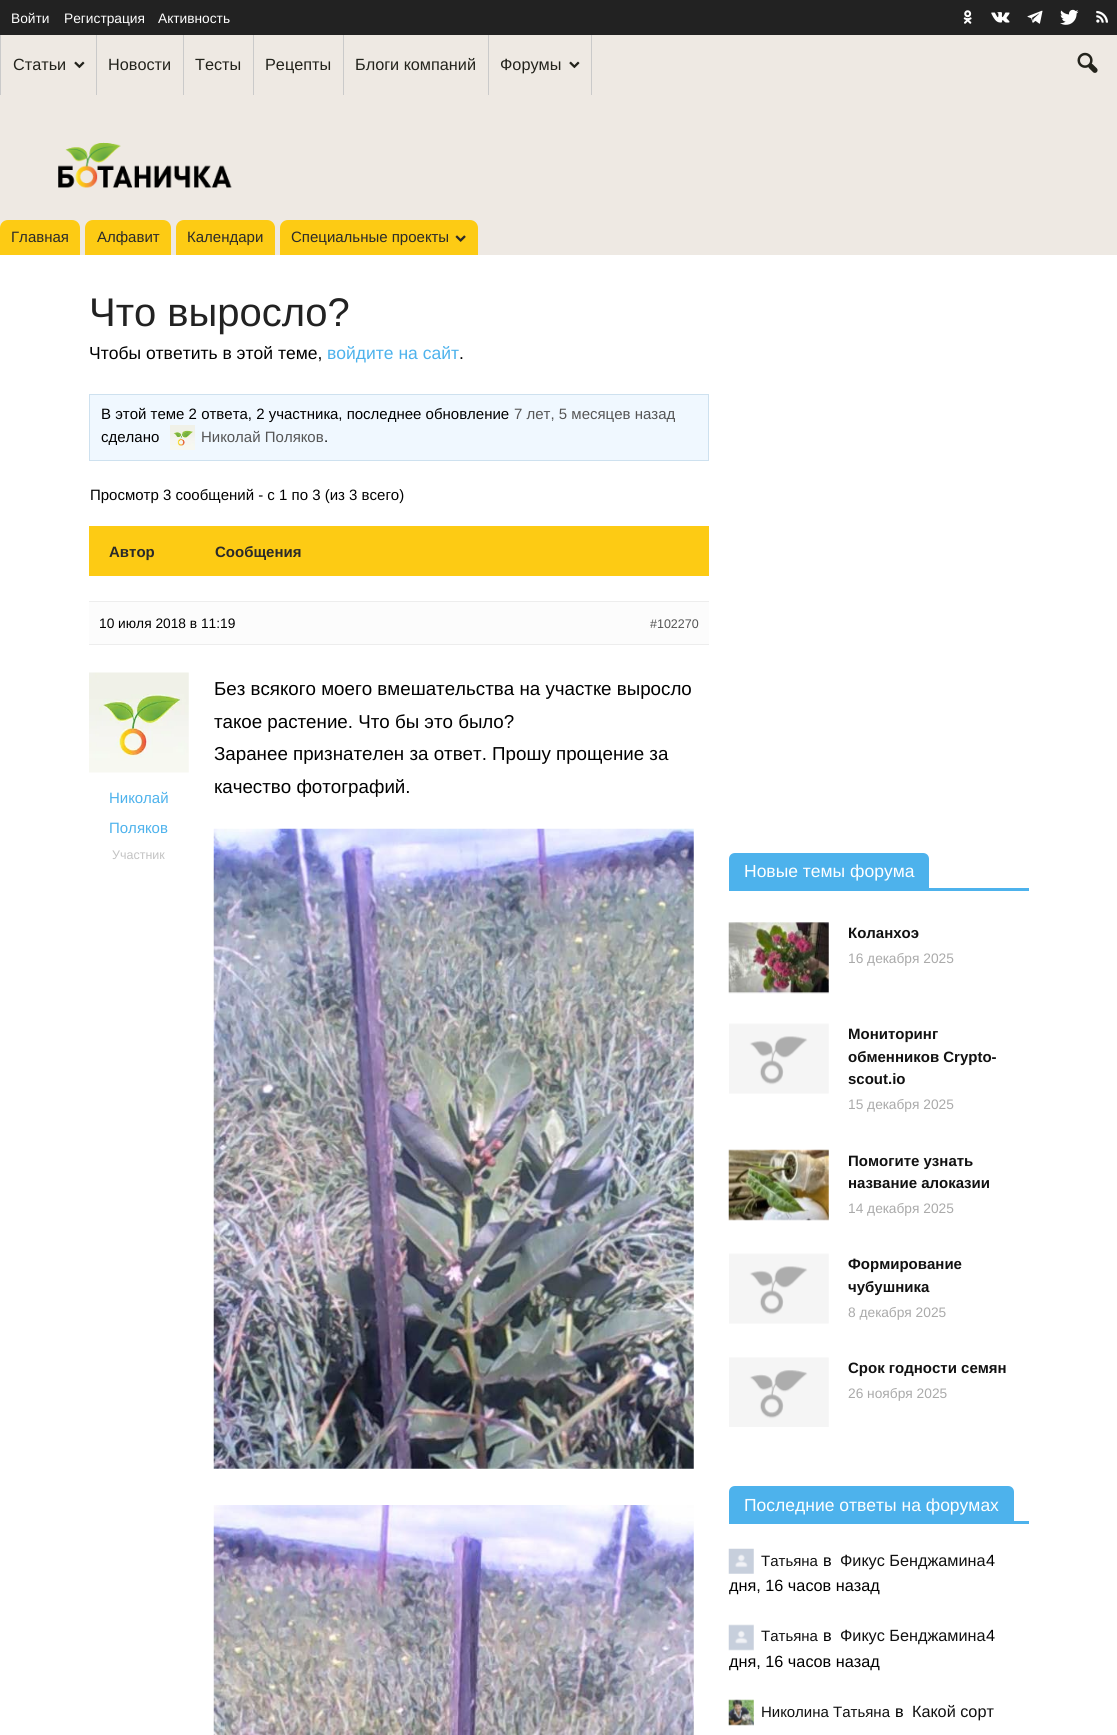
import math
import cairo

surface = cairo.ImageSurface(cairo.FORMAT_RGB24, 1117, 1735)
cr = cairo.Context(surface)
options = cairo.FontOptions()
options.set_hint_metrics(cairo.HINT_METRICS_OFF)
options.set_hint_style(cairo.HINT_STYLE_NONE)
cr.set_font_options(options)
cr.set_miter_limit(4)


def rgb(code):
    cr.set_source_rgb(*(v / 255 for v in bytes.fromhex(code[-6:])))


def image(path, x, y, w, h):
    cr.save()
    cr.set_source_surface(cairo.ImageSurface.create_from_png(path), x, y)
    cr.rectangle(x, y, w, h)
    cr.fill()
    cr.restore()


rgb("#eee9e3")
cr.paint()
rgb("#222222")
cr.rectangle(0, 0, 1117, 35)
cr.fill()
image("img/1.png", 963, 10, 9, 14)
image("img/2.png", 991, 12, 19, 11)
image("img/3.png", 1027, 10, 16, 14)
image("img/4.png", 1060, 9, 19, 16)
image("img/5.png", 1096, 10, 12, 13)
rgb("#cacaca")
cr.rectangle(0, 35, 1, 60)
cr.fill()
image("img/6.png", 74, 61, 11, 8)
for x, y, w, h, color in [
    (96, 35, 1, 60, "#cacaca"),
    (183, 35, 1, 60, "#cacaca"),
    (253, 35, 1, 60, "#cacaca"),
    (343, 35, 1, 60, "#cacaca"),
    (591, 35, 1, 60, "#cacaca"),
    (488, 35, 1, 60, "#cacaca"),
]:
    rgb(color)
    cr.rectangle(x, y, w, h)
    cr.fill()
image("img/6.png", 569, 61, 11, 8)
image("img/7.png", 1077, 52, 21, 21)
image("img/8.png", 58, 142, 174, 46)
rgb("#fdcb14")
cr.new_path()
cr.move_to(8, 220)
cr.line_to(72, 220)
cr.curve_to(76.5, 220, 80, 223.5, 80, 228)
cr.line_to(80, 255)
cr.line_to(0, 255)
cr.line_to(0, 228)
cr.curve_to(0, 223.5, 3.5, 220, 8, 220)
cr.close_path()
cr.fill()
cr.new_path()
cr.move_to(93, 220)
cr.line_to(163, 220)
cr.curve_to(167.5, 220, 171, 223.5, 171, 228)
cr.line_to(171, 255)
cr.line_to(85, 255)
cr.line_to(85, 228)
cr.curve_to(85, 223.5, 88.5, 220, 93, 220)
cr.close_path()
cr.fill()
cr.new_path()
cr.move_to(184, 220)
cr.line_to(267, 220)
cr.curve_to(271.5, 220, 275, 223.5, 275, 228)
cr.line_to(275, 255)
cr.line_to(176, 255)
cr.line_to(176, 228)
cr.curve_to(176, 223.5, 179.5, 220, 184, 220)
cr.close_path()
cr.fill()
cr.new_path()
cr.move_to(288, 220)
cr.line_to(470, 220)
cr.curve_to(474.5, 220, 478, 223.5, 478, 228)
cr.line_to(478, 255)
cr.line_to(280, 255)
cr.line_to(280, 228)
cr.curve_to(280, 223.5, 283.5, 220, 288, 220)
cr.close_path()
cr.fill()
image("img/9.png", 455, 235, 11, 7)
rgb("#ffffff")
cr.rectangle(0, 255, 1117, 1480)
cr.fill()
rgb("#f0f8ff")
cr.rectangle(89.5, 394.5, 619, 66)
cr.fill_preserve()
rgb("#cee1ef")
cr.set_line_width(1)
cr.stroke()
image("img/10.png", 170, 425, 25, 25)
for x, y, w, h, color in [
    (89, 526, 620, 50, "#fdcb14"),
    (89, 602, 620, 42, "#fcfcfc"),
    (89, 601, 620, 1, "#ededed"),
    (89, 644, 620, 1, "#ededed"),
]:
    rgb(color)
    cr.rectangle(x, y, w, h)
    cr.fill()
image("img/11.png", 213, 828, 481, 641)
image("img/12.png", 213, 1505, 481, 230)
image("img/13.png", 89, 672, 100, 101)
rgb("#4db2ec")
cr.rectangle(729, 888, 300, 3)
cr.fill()
cr.new_path()
cr.move_to(735, 853)
cr.line_to(923, 853)
cr.curve_to(926.5, 853, 929, 855.5, 929, 859)
cr.line_to(929, 888)
cr.line_to(729, 888)
cr.line_to(729, 859)
cr.curve_to(729, 855.5, 731.5, 853, 735, 853)
cr.close_path()
cr.fill()
image("img/14.png", 728, 922, 101, 72)
image("img/15.png", 729, 1023, 100, 71)
image("img/16.png", 728, 1149, 101, 72)
image("img/15.png", 729, 1253, 100, 71)
image("img/17.png", 729, 1357, 100, 70)
cr.rectangle(729, 1521, 300, 3)
cr.fill()
cr.new_path()
cr.move_to(735, 1486)
cr.line_to(1008, 1486)
cr.curve_to(1011.5, 1486, 1014, 1488.5, 1014, 1492)
cr.line_to(1014, 1521)
cr.line_to(729, 1521)
cr.line_to(729, 1492)
cr.curve_to(729, 1488.5, 731.5, 1486, 735, 1486)
cr.close_path()
cr.fill()
image("img/18.png", 728, 1548, 26, 26)
image("img/19.png", 728, 1624, 26, 27)
image("img/20.png", 728, 1699, 26, 27)
cr.select_font_face("Liberation Sans")
cr.set_font_size(13.75)
rgb("#ffffff")
for x, y, s in [
    (11, 23, "Войти"),
    (64, 23, "Регистрация"),
    (158, 23, "Активность"),
]:
    cr.move_to(x, y)
    cr.show_text(s)
cr.set_font_size(16.25)
rgb("#23231c")
for x, y, s in [
    (13, 70, "Статьи"),
    (108, 70, "Новости"),
    (195, 70, "Тесты"),
    (265, 70, "Рецепты"),
    (355, 70, "Блоги компаний"),
    (500, 70, "Форумы"),
]:
    cr.move_to(x, y)
    cr.show_text(s)
cr.set_font_size(15)
rgb("#2a2a2a")
for x, y, s in [
    (11, 242, "Главная"),
    (97, 242, "Алфавит"),
    (187, 242, "Календари"),
    (291, 242, "Специальные проекты"),
]:
    cr.move_to(x, y)
    cr.show_text(s)
cr.set_font_size(40)
rgb("#222222")
cr.move_to(89, 326)
cr.show_text("Что выросло?")
cr.set_font_size(17.5)
rgb("#000000")
cr.move_to(89, 359)
cr.show_text("Чтобы ответить в этой теме,")
rgb("#4db2ec")
cr.move_to(327, 359)
cr.show_text("войдите на сайт")
rgb("#000000")
cr.move_to(459, 359)
cr.show_text(".")
cr.set_font_size(15)
cr.move_to(101, 419)
cr.show_text("В этой теме 2 ответа, 2 участника, последнее обновление")
rgb("#555555")
cr.move_to(514, 419)
cr.show_text("7 лет, 5 месяцев назад")
rgb("#000000")
cr.move_to(101, 442)
cr.show_text("сделано")
rgb("#555555")
cr.move_to(201, 442)
cr.show_text("Николай Поляков")
rgb("#000000")
cr.move_to(324, 442)
cr.show_text(".")
cr.move_to(90, 500)
cr.show_text("Просмотр 3 сообщений - с 1 по 3 (из 3 всего)")
cr.select_font_face("Liberation Sans", cairo.FONT_SLANT_NORMAL, cairo.FONT_WEIGHT_BOLD)
rgb("#2a2a2a")
cr.move_to(109, 557)
cr.show_text("Автор")
cr.move_to(215, 557)
cr.show_text("Сообщения")
cr.select_font_face("Liberation Sans")
cr.set_font_size(13.75)
rgb("#000000")
cr.move_to(99, 628)
cr.show_text("10 июля 2018 в 11:19")
cr.set_font_size(12.5)
rgb("#555555")
cr.move_to(650, 628)
cr.show_text("#102270")
cr.set_font_size(18.75)
rgb("#000000")
for x, y, s in [
    (214, 695, "Без всякого моего вмешательства на участке выросло"),
    (214, 728, "такое растение. Что бы это было?"),
    (214, 760, "Заранее признателен за ответ. Прошу прощение за"),
    (214, 793, "качество фотографий."),
]:
    cr.move_to(x, y)
    cr.show_text(s)
cr.set_font_size(15)
rgb("#4db2ec")
cr.move_to(109, 803)
cr.show_text("Николай")
cr.move_to(109, 833)
cr.show_text("Поляков")
cr.set_font_size(12.5)
rgb("#c3c3c3")
cr.move_to(112, 859)
cr.show_text("Участник")
cr.set_font_size(17.5)
rgb("#ffffff")
cr.move_to(744, 877)
cr.show_text("Новые темы форума")
cr.select_font_face("Liberation Sans", cairo.FONT_SLANT_NORMAL, cairo.FONT_WEIGHT_BOLD)
cr.set_font_size(15)
rgb("#111111")
cr.move_to(848, 938)
cr.show_text("Коланхоэ")
cr.select_font_face("Liberation Sans")
cr.set_font_size(13.75)
rgb("#aaaaaa")
cr.move_to(848, 963)
cr.show_text("16 декабря 2025")
cr.select_font_face("Liberation Sans", cairo.FONT_SLANT_NORMAL, cairo.FONT_WEIGHT_BOLD)
cr.set_font_size(15)
rgb("#111111")
for x, y, s in [
    (848, 1039, "Мониторинг"),
    (848, 1062, "обменников Сrypto-"),
    (848, 1084, "scout.io"),
]:
    cr.move_to(x, y)
    cr.show_text(s)
cr.select_font_face("Liberation Sans")
cr.set_font_size(13.75)
rgb("#aaaaaa")
cr.move_to(848, 1109)
cr.show_text("15 декабря 2025")
cr.select_font_face("Liberation Sans", cairo.FONT_SLANT_NORMAL, cairo.FONT_WEIGHT_BOLD)
cr.set_font_size(15)
rgb("#111111")
cr.move_to(848, 1166)
cr.show_text("Помогите узнать")
cr.move_to(848, 1188)
cr.show_text("название алоказии")
cr.select_font_face("Liberation Sans")
cr.set_font_size(13.75)
rgb("#aaaaaa")
cr.move_to(848, 1213)
cr.show_text("14 декабря 2025")
cr.select_font_face("Liberation Sans", cairo.FONT_SLANT_NORMAL, cairo.FONT_WEIGHT_BOLD)
cr.set_font_size(15)
rgb("#111111")
cr.move_to(848, 1269)
cr.show_text("Формирование")
cr.move_to(848, 1292)
cr.show_text("чубушника")
cr.select_font_face("Liberation Sans")
cr.set_font_size(13.75)
rgb("#aaaaaa")
cr.move_to(848, 1317)
cr.show_text("8 декабря 2025")
cr.select_font_face("Liberation Sans", cairo.FONT_SLANT_NORMAL, cairo.FONT_WEIGHT_BOLD)
cr.set_font_size(15)
rgb("#111111")
cr.move_to(848, 1373)
cr.show_text("Срок годности семян")
cr.select_font_face("Liberation Sans")
cr.set_font_size(13.75)
rgb("#aaaaaa")
cr.move_to(848, 1398)
cr.show_text("26 ноября 2025")
cr.set_font_size(17.5)
rgb("#ffffff")
cr.move_to(744, 1511)
cr.show_text("Последние ответы на форумах")
cr.set_font_size(15)
rgb("#111111")
cr.move_to(761, 1566)
cr.show_text("Татьяна")
cr.set_font_size(16.25)
rgb("#000000")
cr.move_to(823, 1566)
cr.show_text("в")
rgb("#111111")
cr.move_to(840, 1566)
cr.show_text("Фикус Бенджамина")
rgb("#000000")
cr.move_to(986, 1566)
cr.show_text("4")
cr.save()
cr.rectangle(729, 1486, 300, 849)
cr.clip()
cr.move_to(729, 1591)
cr.show_text("дня, 16 часов назад")
cr.restore()
cr.set_font_size(15)
rgb("#111111")
cr.move_to(761, 1641)
cr.show_text("Татьяна")
cr.set_font_size(16.25)
rgb("#000000")
cr.move_to(823, 1641)
cr.show_text("в")
rgb("#111111")
cr.move_to(840, 1641)
cr.show_text("Фикус Бенджамина")
rgb("#000000")
cr.move_to(986, 1641)
cr.show_text("4")
cr.save()
cr.rectangle(729, 1486, 300, 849)
cr.clip()
cr.move_to(729, 1667)
cr.show_text("дня, 16 часов назад")
cr.restore()
cr.set_font_size(15)
rgb("#111111")
cr.move_to(761, 1717)
cr.show_text("Николина Татьяна")
cr.set_font_size(16.25)
rgb("#000000")
cr.move_to(895, 1717)
cr.show_text("в")
rgb("#111111")
cr.move_to(912, 1717)
cr.show_text("Какой сорт")
surface.write_to_png("page.png")
